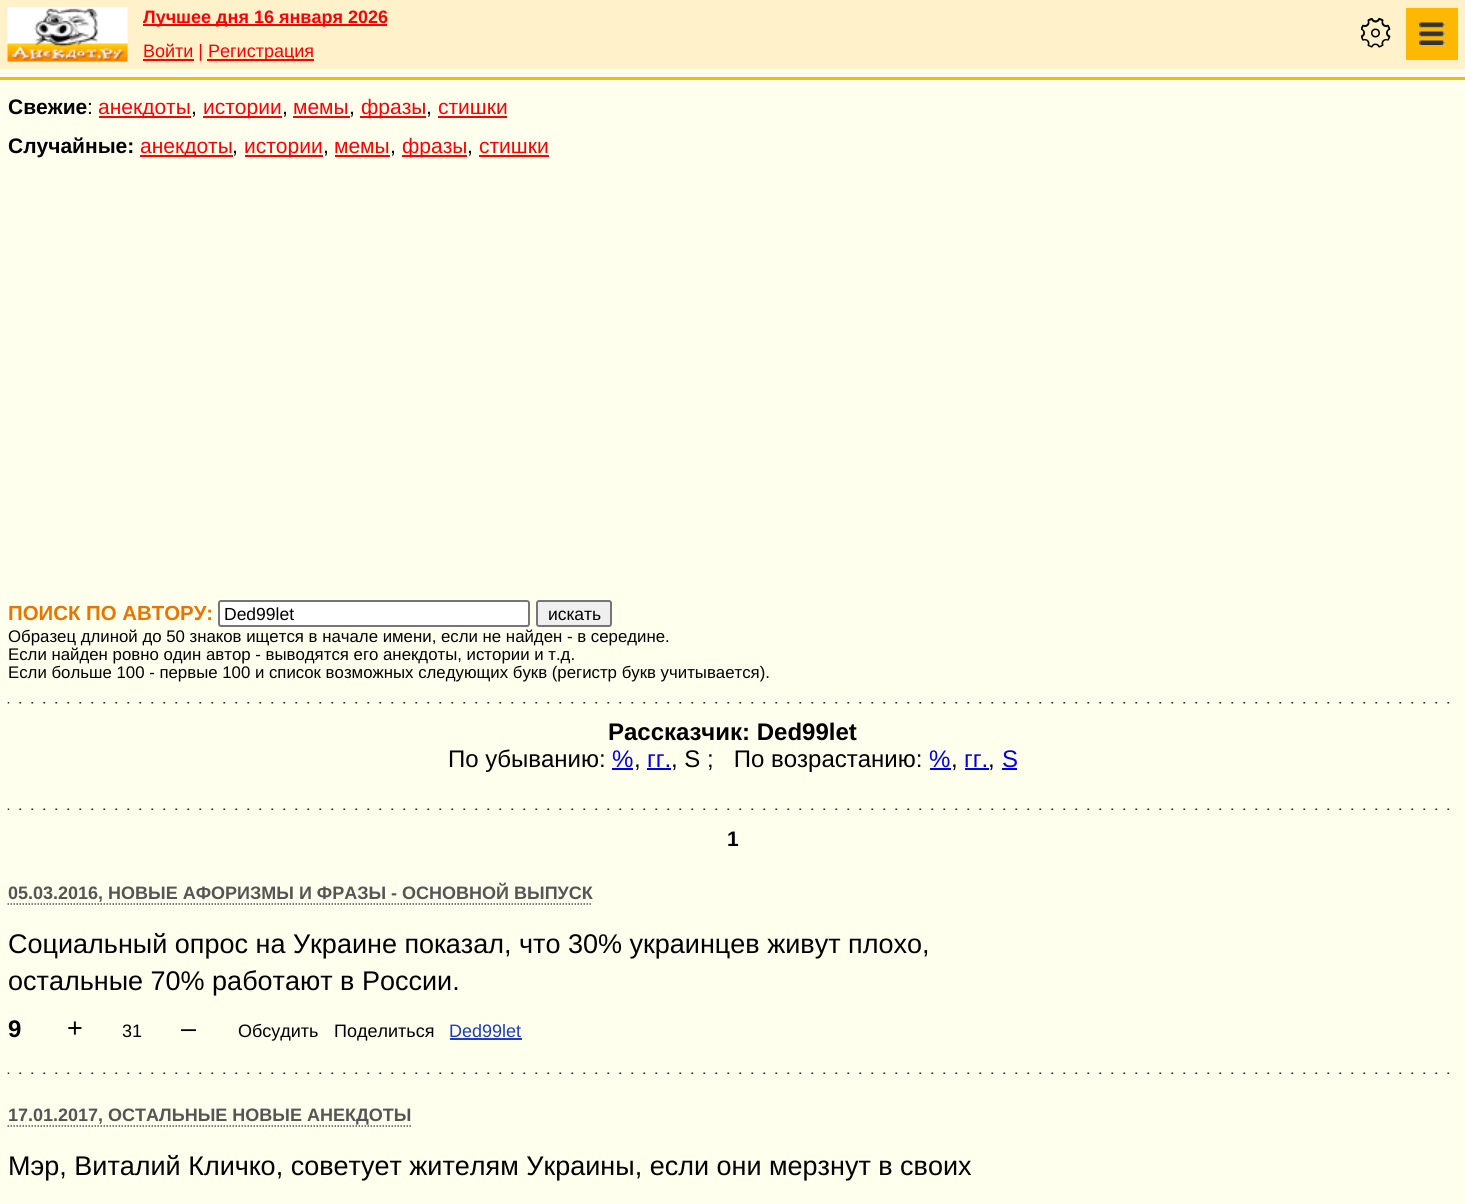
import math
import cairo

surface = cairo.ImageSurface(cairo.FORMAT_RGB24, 1465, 1204)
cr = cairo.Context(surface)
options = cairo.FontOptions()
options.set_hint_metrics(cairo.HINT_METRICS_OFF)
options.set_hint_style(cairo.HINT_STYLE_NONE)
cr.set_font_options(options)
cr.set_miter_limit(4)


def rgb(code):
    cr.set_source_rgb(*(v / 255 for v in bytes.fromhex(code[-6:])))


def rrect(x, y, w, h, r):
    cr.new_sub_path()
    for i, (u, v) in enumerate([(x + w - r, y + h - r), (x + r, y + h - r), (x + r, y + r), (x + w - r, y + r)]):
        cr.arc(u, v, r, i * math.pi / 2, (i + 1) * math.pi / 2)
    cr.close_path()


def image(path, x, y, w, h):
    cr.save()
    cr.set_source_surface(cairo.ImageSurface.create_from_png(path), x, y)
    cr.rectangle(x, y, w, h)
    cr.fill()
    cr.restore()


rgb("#ffffee")
cr.paint()
rgb("#fff2ca")
cr.rectangle(0, 0, 1465, 69)
cr.fill()
image("img/1.png", 7, 7, 121, 55)
rgb("#ff0000")
cr.rectangle(143, 24, 244, 2)
cr.fill()
image("img/2.png", 1361, 18, 30, 30)
rgb("#ffb800")
cr.rectangle(1406, 8, 52, 52)
cr.fill()
image("img/3.png", 1419, 22, 26, 23)
for x, y, w, h, color in [
    (143, 59, 51, 2, "#ff0000"),
    (207, 59, 107, 2, "#ff0000"),
    (0, 77, 1465, 3, "#ffb800"),
    (99, 116, 92, 2, "#ff0000"),
    (203, 116, 79, 2, "#ff0000"),
    (293, 116, 57, 2, "#ff0000"),
    (360, 116, 66, 2, "#ff0000"),
    (438, 116, 69, 2, "#ff0000"),
    (140, 155, 93, 2, "#ff0000"),
    (245, 155, 78, 2, "#ff0000"),
    (335, 155, 55, 2, "#ff0000"),
    (402, 155, 65, 2, "#ff0000"),
    (479, 155, 70, 2, "#ff0000"),
]:
    rgb(color)
    cr.rectangle(x, y, w, h)
    cr.fill()
image("img/4.png", 7, 702, 1443, 2)
rgb("#ffffff")
rrect(219, 601, 310, 25, 2)
cr.fill_preserve()
rgb("#767676")
cr.stroke()
rgb("#efefef")
rrect(537, 601, 74, 25, 2)
cr.fill_preserve()
rgb("#767676")
cr.stroke()
for x, y, w, h, color in [
    (612, 768, 21, 2, "#0000ee"),
    (647, 768, 24, 2, "#0000ee"),
    (930, 768, 21, 2, "#0000ee"),
    (965, 768, 24, 2, "#0000ee"),
    (1002, 768, 15, 2, "#0000ee"),
]:
    rgb(color)
    cr.rectangle(x, y, w, h)
    cr.fill()
image("img/5.png", 7, 808, 1443, 2)
image("img/5.png", 7, 1072, 1443, 2)
cr.new_path()
cr.move_to(7.5, 904)
cr.line_to(592.5, 904)
rgb("#555555")
cr.set_line_width(1.5)
cr.set_dash([1.5, 1.5])
cr.stroke()
rgb("#1a3dc1")
cr.rectangle(450, 1038, 72, 2)
cr.fill()
cr.new_path()
cr.move_to(7.5, 1126)
cr.line_to(411, 1126)
rgb("#555555")
cr.stroke()
cr.select_font_face("Liberation Sans", cairo.FONT_SLANT_NORMAL, cairo.FONT_WEIGHT_BOLD)
cr.set_font_size(18)
rgb("#ff0000")
cr.move_to(143, 23)
cr.show_text("Лучшее дня 16 января 2026")
cr.select_font_face("Liberation Sans")
cr.move_to(143, 57)
cr.show_text("Войти |")
cr.move_to(208, 57)
cr.show_text("Регистрация")
cr.select_font_face("Liberation Sans", cairo.FONT_SLANT_NORMAL, cairo.FONT_WEIGHT_BOLD)
cr.set_font_size(21)
rgb("#000000")
cr.move_to(8, 114)
cr.show_text("Свежие")
cr.select_font_face("Liberation Sans")
cr.move_to(87, 114)
cr.show_text(":")
rgb("#ff0000")
cr.move_to(98, 114)
cr.show_text("анекдоты")
rgb("#000000")
cr.move_to(191, 114)
cr.show_text(",")
rgb("#ff0000")
cr.move_to(203, 114)
cr.show_text("истории")
rgb("#000000")
cr.move_to(282, 114)
cr.show_text(",")
rgb("#ff0000")
cr.move_to(293, 114)
cr.show_text("мемы")
rgb("#000000")
cr.move_to(349, 114)
cr.show_text(",")
rgb("#ff0000")
cr.move_to(361, 114)
cr.show_text("фразы")
rgb("#000000")
cr.move_to(426, 114)
cr.show_text(",")
rgb("#ff0000")
cr.move_to(438, 114)
cr.show_text("стишки")
cr.select_font_face("Liberation Sans", cairo.FONT_SLANT_NORMAL, cairo.FONT_WEIGHT_BOLD)
rgb("#000000")
cr.move_to(8, 153)
cr.show_text("Случайные:")
cr.select_font_face("Liberation Sans")
rgb("#ff0000")
cr.move_to(140, 153)
cr.show_text("анекдоты")
rgb("#000000")
cr.move_to(232, 153)
cr.show_text(",")
rgb("#ff0000")
cr.move_to(244, 153)
cr.show_text("истории")
rgb("#000000")
cr.move_to(323, 153)
cr.show_text(",")
rgb("#ff0000")
cr.move_to(334, 153)
cr.show_text("мемы")
rgb("#000000")
cr.move_to(390, 153)
cr.show_text(",")
rgb("#ff0000")
cr.move_to(402, 153)
cr.show_text("фразы")
rgb("#000000")
cr.move_to(467, 153)
cr.show_text(",")
rgb("#ff0000")
cr.move_to(479, 153)
cr.show_text("стишки")
cr.select_font_face("Liberation Sans", cairo.FONT_SLANT_NORMAL, cairo.FONT_WEIGHT_BOLD)
cr.set_font_size(20.4)
rgb("#eb7400")
cr.move_to(8, 620)
cr.show_text("ПОИСК ПО АВТОРУ:")
cr.select_font_face("Liberation Sans")
cr.set_font_size(17.5)
rgb("#000000")
cr.move_to(224, 620)
cr.show_text("Ded99let")
cr.move_to(548, 620)
cr.show_text("искать")
cr.set_font_size(16.8)
for x, y, s in [
    (8, 642, "Образец длиной до 50 знаков ищется в начале имени, если не найден - в середине."),
    (8, 660, "Если найден ровно один автор - выводятся его анекдоты, истории и т.д."),
    (8, 678, "Если больше 100 - первые 100 и список возможных следующих букв (регистр букв учитывается)."),
]:
    cr.move_to(x, y)
    cr.show_text(s)
cr.select_font_face("Liberation Sans", cairo.FONT_SLANT_NORMAL, cairo.FONT_WEIGHT_BOLD)
cr.set_font_size(24)
cr.move_to(608, 740)
cr.show_text("Рассказчик: Ded99let")
cr.select_font_face("Liberation Sans")
cr.move_to(448, 767)
cr.show_text("По убыванию:")
rgb("#0000ee")
cr.move_to(612, 767)
cr.show_text("%")
rgb("#000000")
cr.move_to(634, 767)
cr.show_text(",")
rgb("#0000ee")
cr.move_to(647, 767)
cr.show_text("гг.")
rgb("#000000")
cr.move_to(671, 767)
cr.show_text(", S ;   По возрастанию:")
rgb("#0000ee")
cr.move_to(929, 767)
cr.show_text("%")
rgb("#000000")
cr.move_to(951, 767)
cr.show_text(",")
rgb("#0000ee")
cr.move_to(964, 767)
cr.show_text("гг.")
rgb("#000000")
cr.move_to(988, 767)
cr.show_text(",")
rgb("#0000ee")
cr.move_to(1002, 767)
cr.show_text("S")
cr.select_font_face("Liberation Sans", cairo.FONT_SLANT_NORMAL, cairo.FONT_WEIGHT_BOLD)
cr.set_font_size(21)
rgb("#000000")
cr.move_to(727, 846)
cr.show_text("1")
cr.set_font_size(18)
rgb("#555555")
cr.move_to(8, 899)
cr.show_text("05.03.2016, НОВЫЕ АФОРИЗМЫ И ФРАЗЫ - ОСНОВНОЙ ВЫПУСК")
cr.select_font_face("Liberation Sans")
cr.set_font_size(27)
rgb("#000000")
cr.move_to(8, 953)
cr.show_text("Социальный опрос на Украине показал, что 30% украинцев живут плохо,")
cr.move_to(8, 990)
cr.show_text("остальные 70% работают в России.")
cr.select_font_face("Liberation Sans", cairo.FONT_SLANT_NORMAL, cairo.FONT_WEIGHT_BOLD)
cr.set_font_size(24)
cr.move_to(8, 1037)
cr.show_text("9")
cr.select_font_face("Liberation Sans")
cr.set_font_size(27)
cr.move_to(67, 1037)
cr.show_text("+")
cr.set_font_size(18)
cr.move_to(122, 1037)
cr.show_text("31")
cr.set_font_size(27)
cr.move_to(181, 1037)
cr.show_text("–")
cr.set_font_size(18)
cr.move_to(238, 1037)
cr.show_text("Обсудить")
cr.move_to(334, 1037)
cr.show_text("Поделиться")
rgb("#1a3dc1")
cr.move_to(449, 1037)
cr.show_text("Ded99let")
cr.select_font_face("Liberation Sans", cairo.FONT_SLANT_NORMAL, cairo.FONT_WEIGHT_BOLD)
rgb("#555555")
cr.move_to(8, 1121)
cr.show_text("17.01.2017, ОСТАЛЬНЫЕ НОВЫЕ АНЕКДОТЫ")
cr.select_font_face("Liberation Sans")
cr.set_font_size(27)
rgb("#000000")
cr.move_to(8, 1175)
cr.show_text("Мэр, Виталий Кличко, советует жителям Украины, если они мерзнут в своих")
surface.write_to_png("page.png")
